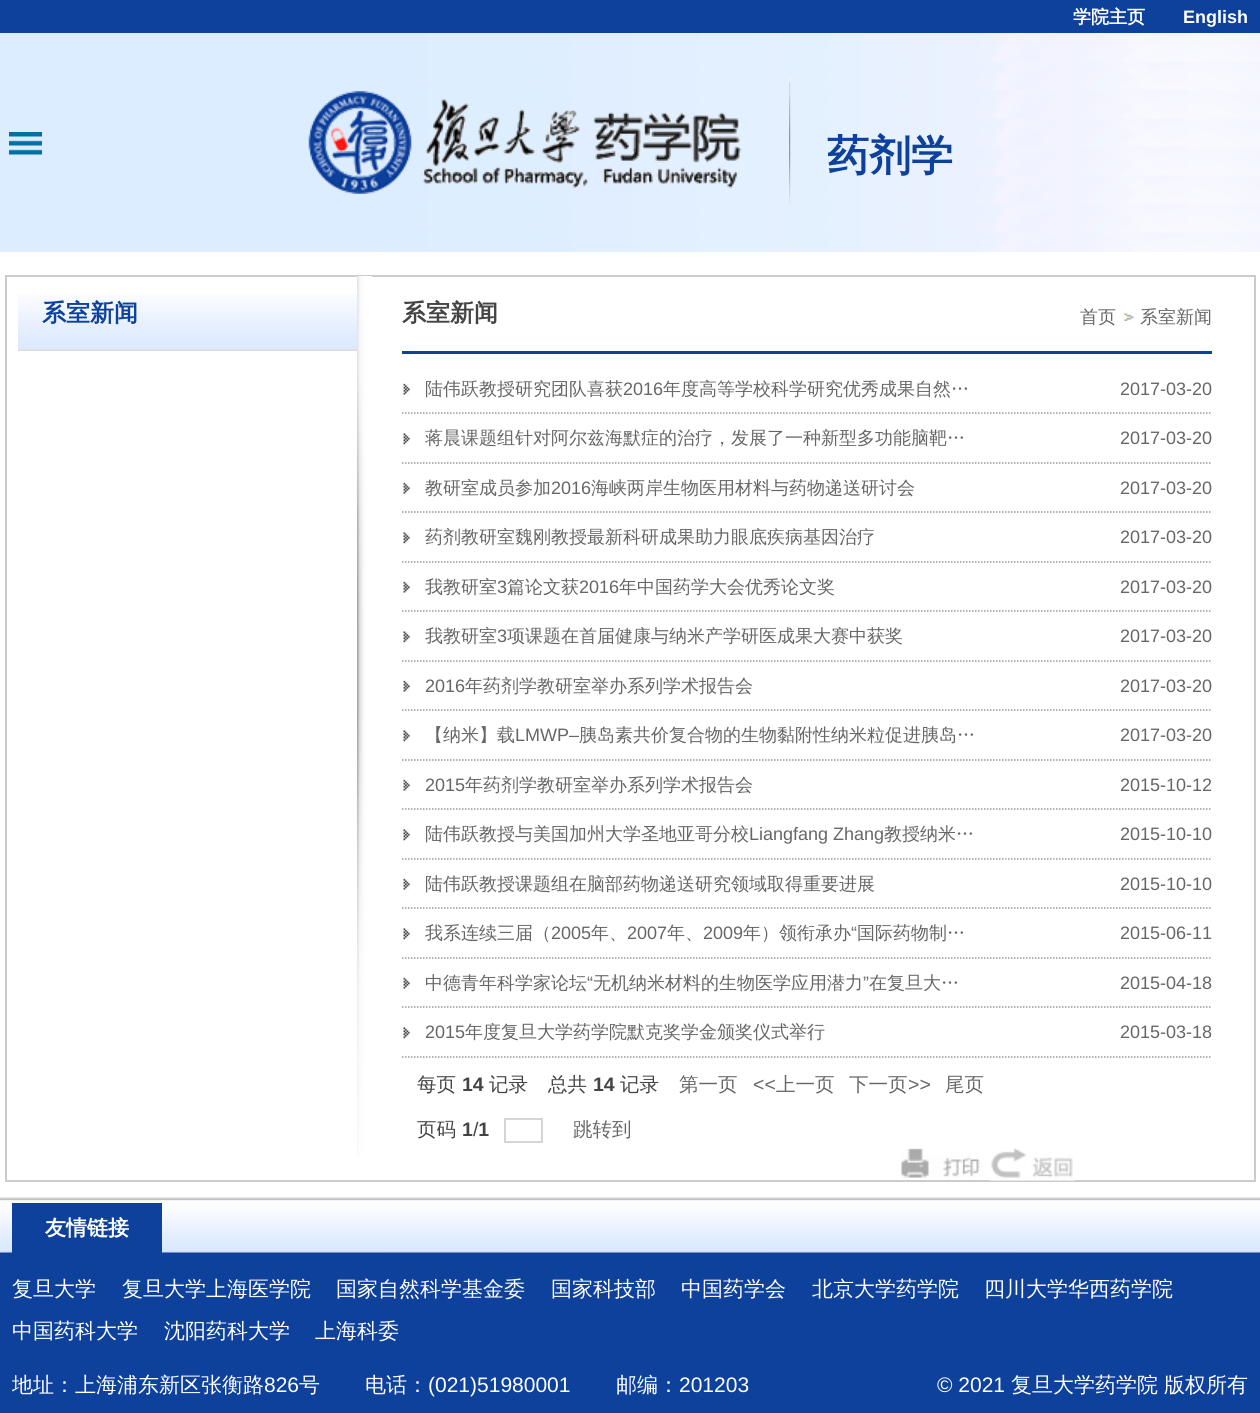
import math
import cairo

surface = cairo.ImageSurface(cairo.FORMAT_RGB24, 1260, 1413)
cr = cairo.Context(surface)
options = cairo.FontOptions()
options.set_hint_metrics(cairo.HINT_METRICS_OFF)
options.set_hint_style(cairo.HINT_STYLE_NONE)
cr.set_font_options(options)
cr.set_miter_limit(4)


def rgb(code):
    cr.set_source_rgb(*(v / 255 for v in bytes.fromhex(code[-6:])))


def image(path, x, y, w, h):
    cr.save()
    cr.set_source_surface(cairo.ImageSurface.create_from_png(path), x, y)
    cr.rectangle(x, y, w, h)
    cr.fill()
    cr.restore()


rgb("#ffffff")
cr.paint()
rgb("#0e419c")
cr.rectangle(0, 0, 1260, 33)
cr.fill()
image("img/1.png", 0, 33, 1260, 219)
image("img/2.png", 9, 132, 33, 23)
image("img/3.png", 308, 78, 483, 129)
image("img/4.png", 308, 91, 434, 103)
cr.rectangle(6, 276, 1249, 905)
rgb("#cccccc")
cr.stroke()
image("img/5.png", 357, 276, 15, 879)
image("img/6.png", 18, 294, 339, 57)
rgb("#0e419c")
cr.rectangle(402, 351, 810, 3)
cr.fill()
image("img/7.png", 1122, 312, 12, 9)
cr.new_path()
cr.move_to(402, 413)
cr.line_to(1212, 413)
rgb("#999999")
cr.set_line_width(1.5)
cr.set_dash([1.5, 1.5])
cr.stroke()
image("img/8.png", 403, 383, 7, 12)
cr.new_path()
cr.move_to(402, 463)
cr.line_to(1212, 463)
cr.stroke()
image("img/9.png", 403, 433, 7, 12)
cr.new_path()
cr.move_to(402, 512)
cr.line_to(1212, 512)
cr.stroke()
image("img/8.png", 403, 482, 7, 12)
cr.new_path()
cr.move_to(402, 562)
cr.line_to(1212, 562)
cr.stroke()
image("img/9.png", 403, 532, 7, 12)
cr.new_path()
cr.move_to(402, 611)
cr.line_to(1212, 611)
cr.stroke()
image("img/8.png", 403, 581, 7, 12)
cr.new_path()
cr.move_to(402, 661)
cr.line_to(1212, 661)
cr.stroke()
image("img/9.png", 403, 631, 7, 12)
cr.new_path()
cr.move_to(402, 710)
cr.line_to(1212, 710)
cr.stroke()
image("img/8.png", 403, 680, 7, 12)
cr.new_path()
cr.move_to(402, 760)
cr.line_to(1212, 760)
cr.stroke()
image("img/9.png", 403, 730, 7, 12)
cr.new_path()
cr.move_to(402, 809)
cr.line_to(1212, 809)
cr.stroke()
image("img/8.png", 403, 779, 7, 12)
cr.new_path()
cr.move_to(402, 859)
cr.line_to(1212, 859)
cr.stroke()
image("img/9.png", 403, 829, 7, 12)
cr.new_path()
cr.move_to(402, 908)
cr.line_to(1212, 908)
cr.stroke()
image("img/8.png", 403, 878, 7, 12)
cr.new_path()
cr.move_to(402, 958)
cr.line_to(1212, 958)
cr.stroke()
image("img/9.png", 403, 928, 7, 12)
cr.new_path()
cr.move_to(402, 1007)
cr.line_to(1212, 1007)
cr.stroke()
image("img/8.png", 403, 977, 7, 12)
cr.new_path()
cr.move_to(402, 1057)
cr.line_to(1212, 1057)
cr.stroke()
image("img/9.png", 403, 1027, 7, 12)
cr.rectangle(505, 1119, 37, 23)
rgb("#d5d5d5")
cr.set_line_width(2)
cr.set_dash([])
cr.stroke()
image("img/10.png", 901, 1148, 83, 31)
image("img/11.png", 990, 1148, 84, 33)
image("img/12.png", 0, 1197, 1260, 216)
rgb("#0e419c")
cr.rectangle(12, 1203, 150, 50)
cr.fill()
cr.select_font_face("WenQuanYi Zen Hei", cairo.FONT_SLANT_NORMAL, cairo.FONT_WEIGHT_BOLD)
cr.set_font_size(18)
rgb("#ffffff")
cr.move_to(1073, 23)
cr.show_text("学院主页")
cr.select_font_face("Liberation Sans", cairo.FONT_SLANT_NORMAL, cairo.FONT_WEIGHT_BOLD)
cr.move_to(1183, 23)
cr.show_text("English")
cr.select_font_face("WenQuanYi Zen Hei", cairo.FONT_SLANT_NORMAL, cairo.FONT_WEIGHT_BOLD)
cr.set_font_size(42)
rgb("#0e419c")
cr.move_to(827, 170)
cr.show_text("药剂学")
cr.set_font_size(24)
cr.move_to(42, 321)
cr.show_text("系室新闻")
rgb("#444444")
cr.move_to(402, 321)
cr.show_text("系室新闻")
cr.select_font_face("WenQuanYi Zen Hei Medium")
cr.set_font_size(18)
rgb("#666666")
for x, y, s in [
    (1080, 323, "首页"),
    (1140, 323, "系室新闻"),
    (425, 395, "陆伟跃教授研究团队喜获"),
]:
    cr.move_to(x, y)
    cr.show_text(s)
cr.select_font_face("Liberation Sans")
cr.move_to(623, 395)
cr.show_text("2016")
cr.select_font_face("WenQuanYi Zen Hei Medium")
cr.move_to(663, 395)
cr.show_text("年度高等学校科学研究优秀成果自然…")
cr.select_font_face("Liberation Sans")
cr.move_to(1120, 395)
cr.show_text("2017-03-20")
cr.select_font_face("WenQuanYi Zen Hei Medium")
cr.move_to(425, 444)
cr.show_text("蒋晨课题组针对阿尔兹海默症的治疗，发展了一种新型多功能脑靶…")
cr.select_font_face("Liberation Sans")
cr.move_to(1120, 444)
cr.show_text("2017-03-20")
cr.select_font_face("WenQuanYi Zen Hei Medium")
cr.move_to(425, 494)
cr.show_text("教研室成员参加")
cr.select_font_face("Liberation Sans")
cr.move_to(551, 494)
cr.show_text("2016")
cr.select_font_face("WenQuanYi Zen Hei Medium")
cr.move_to(591, 494)
cr.show_text("海峡两岸生物医用材料与药物递送研讨会")
cr.select_font_face("Liberation Sans")
cr.move_to(1120, 494)
cr.show_text("2017-03-20")
cr.select_font_face("WenQuanYi Zen Hei Medium")
cr.move_to(425, 543)
cr.show_text("药剂教研室魏刚教授最新科研成果助力眼底疾病基因治疗")
cr.select_font_face("Liberation Sans")
cr.move_to(1120, 543)
cr.show_text("2017-03-20")
cr.select_font_face("WenQuanYi Zen Hei Medium")
cr.move_to(425, 593)
cr.show_text("我教研室")
cr.select_font_face("Liberation Sans")
cr.move_to(497, 593)
cr.show_text("3")
cr.select_font_face("WenQuanYi Zen Hei Medium")
cr.move_to(507, 593)
cr.show_text("篇论文获")
cr.select_font_face("Liberation Sans")
cr.move_to(579, 593)
cr.show_text("2016")
cr.select_font_face("WenQuanYi Zen Hei Medium")
cr.move_to(619, 593)
cr.show_text("年中国药学大会优秀论文奖")
cr.select_font_face("Liberation Sans")
cr.move_to(1120, 593)
cr.show_text("2017-03-20")
cr.select_font_face("WenQuanYi Zen Hei Medium")
cr.move_to(425, 642)
cr.show_text("我教研室")
cr.select_font_face("Liberation Sans")
cr.move_to(497, 642)
cr.show_text("3")
cr.select_font_face("WenQuanYi Zen Hei Medium")
cr.move_to(507, 642)
cr.show_text("项课题在首届健康与纳米产学研医成果大赛中获奖")
cr.select_font_face("Liberation Sans")
cr.move_to(1120, 642)
cr.show_text("2017-03-20")
cr.move_to(425, 692)
cr.show_text("2016")
cr.select_font_face("WenQuanYi Zen Hei Medium")
cr.move_to(465, 692)
cr.show_text("年药剂学教研室举办系列学术报告会")
cr.select_font_face("Liberation Sans")
cr.move_to(1120, 692)
cr.show_text("2017-03-20")
cr.select_font_face("WenQuanYi Zen Hei Medium")
cr.move_to(425, 741)
cr.show_text("【纳米】载")
cr.select_font_face("Liberation Sans")
cr.move_to(515, 741)
cr.show_text("LMWP–")
cr.select_font_face("WenQuanYi Zen Hei Medium")
cr.move_to(579, 741)
cr.show_text("胰岛素共价复合物的生物黏附性纳米粒促进胰岛…")
cr.select_font_face("Liberation Sans")
cr.move_to(1120, 741)
cr.show_text("2017-03-20")
cr.move_to(425, 791)
cr.show_text("2015")
cr.select_font_face("WenQuanYi Zen Hei Medium")
cr.move_to(465, 791)
cr.show_text("年药剂学教研室举办系列学术报告会")
cr.select_font_face("Liberation Sans")
cr.move_to(1120, 791)
cr.show_text("2015-10-12")
cr.select_font_face("WenQuanYi Zen Hei Medium")
cr.move_to(425, 840)
cr.show_text("陆伟跃教授与美国加州大学圣地亚哥分校")
cr.select_font_face("Liberation Sans")
cr.move_to(749, 840)
cr.show_text("Liangfang Zhang")
cr.select_font_face("WenQuanYi Zen Hei Medium")
cr.move_to(884, 840)
cr.show_text("教授纳米…")
cr.select_font_face("Liberation Sans")
cr.move_to(1120, 840)
cr.show_text("2015-10-10")
cr.select_font_face("WenQuanYi Zen Hei Medium")
cr.move_to(425, 890)
cr.show_text("陆伟跃教授课题组在脑部药物递送研究领域取得重要进展")
cr.select_font_face("Liberation Sans")
cr.move_to(1120, 890)
cr.show_text("2015-10-10")
cr.select_font_face("WenQuanYi Zen Hei Medium")
cr.move_to(425, 939)
cr.show_text("我系连续三届（")
cr.select_font_face("Liberation Sans")
cr.move_to(551, 939)
cr.show_text("2005")
cr.select_font_face("WenQuanYi Zen Hei Medium")
cr.move_to(591, 939)
cr.show_text("年、")
cr.select_font_face("Liberation Sans")
cr.move_to(627, 939)
cr.show_text("2007")
cr.select_font_face("WenQuanYi Zen Hei Medium")
cr.move_to(667, 939)
cr.show_text("年、")
cr.select_font_face("Liberation Sans")
cr.move_to(703, 939)
cr.show_text("2009")
cr.select_font_face("WenQuanYi Zen Hei Medium")
cr.move_to(743, 939)
cr.show_text("年）领衔承办")
cr.select_font_face("Liberation Sans")
cr.move_to(851, 939)
cr.show_text("“")
cr.select_font_face("WenQuanYi Zen Hei Medium")
cr.move_to(857, 939)
cr.show_text("国际药物制…")
cr.select_font_face("Liberation Sans")
cr.move_to(1120, 939)
cr.show_text("2015-06-11")
cr.select_font_face("WenQuanYi Zen Hei Medium")
cr.move_to(425, 989)
cr.show_text("中德青年科学家论坛")
cr.select_font_face("Liberation Sans")
cr.move_to(587, 989)
cr.show_text("“")
cr.select_font_face("WenQuanYi Zen Hei Medium")
cr.move_to(593, 989)
cr.show_text("无机纳米材料的生物医学应用潜力")
cr.select_font_face("Liberation Sans")
cr.move_to(863, 989)
cr.show_text("”")
cr.select_font_face("WenQuanYi Zen Hei Medium")
cr.move_to(869, 989)
cr.show_text("在复旦大…")
cr.select_font_face("Liberation Sans")
cr.move_to(1120, 989)
cr.show_text("2015-04-18")
cr.move_to(425, 1038)
cr.show_text("2015")
cr.select_font_face("WenQuanYi Zen Hei Medium")
cr.move_to(465, 1038)
cr.show_text("年度复旦大学药学院默克奖学金颁奖仪式举行")
cr.select_font_face("Liberation Sans")
cr.move_to(1120, 1038)
cr.show_text("2015-03-18")
cr.select_font_face("WenQuanYi Zen Hei Medium")
cr.set_font_size(19.5)
rgb("#444444")
cr.move_to(417, 1091)
cr.show_text("每页")
cr.select_font_face("Liberation Sans", cairo.FONT_SLANT_NORMAL, cairo.FONT_WEIGHT_BOLD)
cr.move_to(462, 1091)
cr.show_text("14")
cr.select_font_face("WenQuanYi Zen Hei Medium")
cr.move_to(489, 1091)
cr.show_text("记录")
cr.move_to(548, 1091)
cr.show_text("总共")
cr.select_font_face("Liberation Sans", cairo.FONT_SLANT_NORMAL, cairo.FONT_WEIGHT_BOLD)
cr.move_to(593, 1091)
cr.show_text("14")
cr.select_font_face("WenQuanYi Zen Hei Medium")
cr.move_to(620, 1091)
cr.show_text("记录")
rgb("#666666")
cr.move_to(679, 1091)
cr.show_text("第一页")
cr.select_font_face("Liberation Sans")
cr.move_to(753, 1091)
cr.show_text("<<")
cr.select_font_face("WenQuanYi Zen Hei Medium")
cr.move_to(776, 1091)
cr.show_text("上一页")
cr.move_to(849, 1091)
cr.show_text("下一页")
cr.select_font_face("Liberation Sans")
cr.move_to(908, 1091)
cr.show_text(">>")
cr.select_font_face("WenQuanYi Zen Hei Medium")
cr.move_to(945, 1091)
cr.show_text("尾页")
rgb("#444444")
cr.move_to(417, 1136)
cr.show_text("页码")
cr.select_font_face("Liberation Sans", cairo.FONT_SLANT_NORMAL, cairo.FONT_WEIGHT_BOLD)
cr.move_to(462, 1136)
cr.show_text("1 1")
cr.select_font_face("Liberation Sans")
cr.move_to(473, 1136)
cr.show_text("/")
cr.select_font_face("WenQuanYi Zen Hei Medium")
rgb("#666666")
cr.move_to(573, 1136)
cr.show_text("跳转到")
cr.select_font_face("WenQuanYi Zen Hei", cairo.FONT_SLANT_NORMAL, cairo.FONT_WEIGHT_BOLD)
cr.set_font_size(21)
rgb("#ffffff")
cr.move_to(45, 1235)
cr.show_text("友情链接")
cr.select_font_face("WenQuanYi Zen Hei Medium")
for x, y, s in [
    (12, 1296, "复旦大学"),
    (122, 1296, "复旦大学上海医学院"),
    (336, 1296, "国家自然科学基金委"),
    (551, 1296, "国家科技部"),
    (681, 1296, "中国药学会"),
    (812, 1296, "北京大学药学院"),
    (984, 1296, "四川大学华西药学院"),
    (12, 1338, "中国药科大学"),
    (164, 1338, "沈阳药科大学"),
    (315, 1338, "上海科委"),
    (12, 1392, "地址：上海浦东新区张衡路"),
]:
    cr.move_to(x, y)
    cr.show_text(s)
cr.select_font_face("Liberation Sans")
cr.move_to(264, 1392)
cr.show_text("826")
cr.select_font_face("WenQuanYi Zen Hei Medium")
cr.move_to(299, 1392)
cr.show_text("号")
cr.move_to(365, 1392)
cr.show_text("电话：")
cr.select_font_face("Liberation Sans")
cr.move_to(428, 1392)
cr.show_text("(021)51980001")
cr.select_font_face("WenQuanYi Zen Hei Medium")
cr.move_to(616, 1392)
cr.show_text("邮编：")
cr.select_font_face("Liberation Sans")
cr.move_to(679, 1392)
cr.show_text("201203")
cr.move_to(937, 1392)
cr.show_text("© 2021")
cr.select_font_face("WenQuanYi Zen Hei Medium")
cr.move_to(1011, 1392)
cr.show_text("复旦大学药学院")
cr.move_to(1164, 1392)
cr.show_text("版权所有")
surface.write_to_png("page.png")
